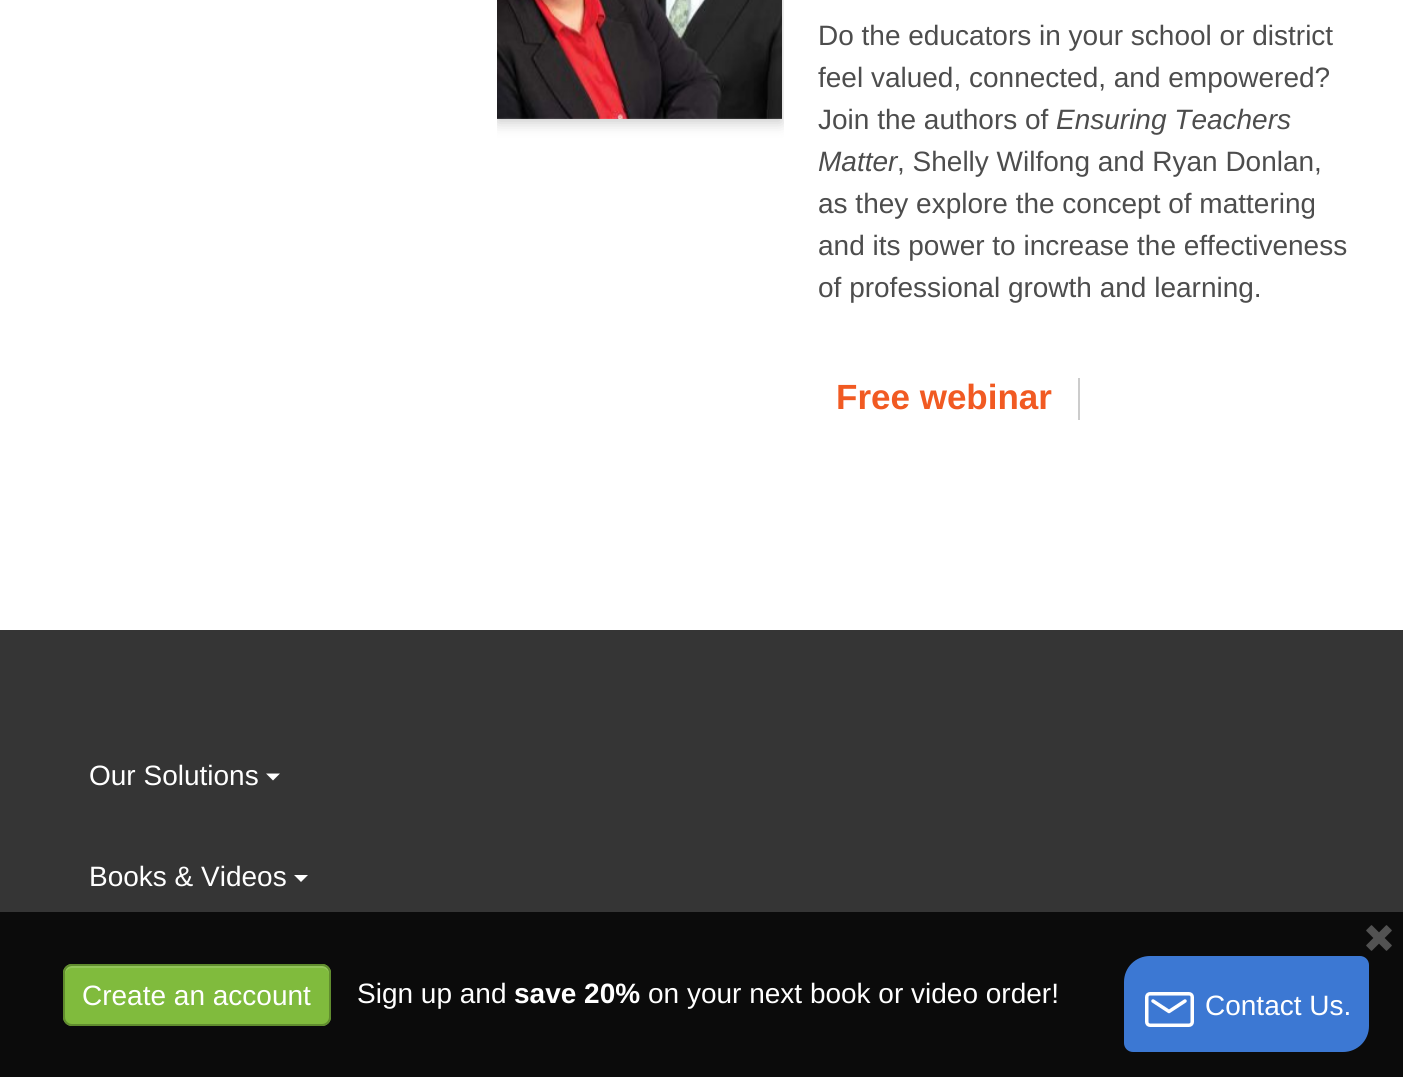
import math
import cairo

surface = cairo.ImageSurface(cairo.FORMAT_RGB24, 1403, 1077)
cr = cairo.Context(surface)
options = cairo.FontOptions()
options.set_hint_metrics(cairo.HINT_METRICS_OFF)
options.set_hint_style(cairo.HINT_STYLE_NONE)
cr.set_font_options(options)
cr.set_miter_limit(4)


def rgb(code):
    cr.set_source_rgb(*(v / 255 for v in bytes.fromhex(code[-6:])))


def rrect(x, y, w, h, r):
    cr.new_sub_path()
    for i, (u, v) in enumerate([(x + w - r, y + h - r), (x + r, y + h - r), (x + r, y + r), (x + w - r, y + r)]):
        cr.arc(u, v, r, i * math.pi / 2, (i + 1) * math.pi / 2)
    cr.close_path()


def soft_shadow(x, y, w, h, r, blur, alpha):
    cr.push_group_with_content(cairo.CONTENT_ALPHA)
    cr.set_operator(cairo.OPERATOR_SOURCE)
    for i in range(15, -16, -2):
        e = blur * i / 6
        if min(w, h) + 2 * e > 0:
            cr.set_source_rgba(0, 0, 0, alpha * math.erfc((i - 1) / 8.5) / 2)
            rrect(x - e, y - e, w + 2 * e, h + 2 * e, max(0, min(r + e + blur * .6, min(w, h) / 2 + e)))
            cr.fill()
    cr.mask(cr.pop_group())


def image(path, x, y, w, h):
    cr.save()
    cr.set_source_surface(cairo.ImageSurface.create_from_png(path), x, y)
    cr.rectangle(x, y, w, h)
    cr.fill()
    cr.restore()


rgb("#ffffff")
cr.paint()
cr.save()
cr.rectangle(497, 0, 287, 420)
cr.clip()
rgb("#000000")
soft_shadow(497, -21, 285, 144, 0, 7, 0.2)
cr.restore()
image("img/1.png", 497, 0, 285, 119)
for x, y, w, h, color in [
    (1078, 378, 2, 42, "#cccccc"),
    (0, 630, 1403, 282, "#353535"),
    (0, 912, 1403, 165, "#0b0b0b"),
]:
    rgb(color)
    cr.rectangle(x, y, w, h)
    cr.fill()
rgb("#ffffff")
cr.new_path()
cr.move_to(266, 773.5)
cr.line_to(280, 773.5)
cr.line_to(273, 780.5)
cr.close_path()
cr.fill()
cr.new_path()
cr.move_to(294, 875)
cr.line_to(308, 875)
cr.line_to(301, 882)
cr.close_path()
cr.fill()
image("img/2.png", 1366, 925, 26, 26)
rgb("#80bb3d")
rrect(63, 964, 268, 62, 9)
cr.fill()
rgb("#93c55a")
cr.new_path()
cr.move_to(72, 968)
cr.line_to(322, 968)
cr.curve_to(326, 968, 329, 971, 329, 975)
cr.line_to(329, 973)
cr.curve_to(329, 969, 326, 966, 322, 966)
cr.line_to(72, 966)
cr.curve_to(68, 966, 65, 969, 65, 973)
cr.line_to(65, 975)
cr.curve_to(65, 971, 68, 968, 72, 968)
cr.close_path()
cr.fill()
rrect(64, 965, 266, 60, 8)
rgb("#608c2e")
cr.stroke()
rgb("#3c78d3")
cr.new_path()
cr.move_to(1150, 956)
cr.line_to(1360, 956)
cr.curve_to(1365, 956, 1369, 960, 1369, 965)
cr.line_to(1369, 1026)
cr.curve_to(1369, 1040.5, 1357.5, 1052, 1343, 1052)
cr.line_to(1133, 1052)
cr.curve_to(1128, 1052, 1124, 1048, 1124, 1043)
cr.line_to(1124, 982)
cr.curve_to(1124, 967.5, 1135.5, 956, 1150, 956)
cr.close_path()
cr.fill()
rrect(1146.75, 993.75, 45.5, 31.5, 3.25)
rgb("#ffffff")
cr.set_line_width(3.5)
cr.stroke()
cr.new_path()
cr.move_to(1153, 1001)
cr.line_to(1169, 1011.5)
cr.line_to(1185, 1001)
cr.set_line_cap(cairo.LINE_CAP_ROUND)
cr.set_line_join(cairo.LINE_JOIN_ROUND)
cr.stroke()
cr.select_font_face("Liberation Sans")
cr.set_font_size(28)
rgb("#4d4d4d")
for x, y, s in [
    (818, 45, "Do the educators in your school or district"),
    (818, 87, "feel valued, connected, and empowered?"),
    (818, 129, "Join the authors of"),
]:
    cr.move_to(x, y)
    cr.show_text(s)
cr.select_font_face("Liberation Sans", cairo.FONT_SLANT_ITALIC)
cr.move_to(1056, 129)
cr.show_text("Ensuring Teachers")
cr.move_to(818, 171)
cr.show_text("Matter")
cr.select_font_face("Liberation Sans")
for x, y, s in [
    (897, 171, ", Shelly Wilfong and Ryan Donlan,"),
    (818, 213, "as they explore the concept of mattering"),
    (818, 255, "and its power to increase the effectiveness"),
    (818, 297, "of professional growth and learning."),
]:
    cr.move_to(x, y)
    cr.show_text(s)
cr.select_font_face("Liberation Sans", cairo.FONT_SLANT_NORMAL, cairo.FONT_WEIGHT_BOLD)
cr.set_font_size(35)
rgb("#f15a22")
cr.move_to(836, 409)
cr.show_text("Free webinar")
cr.select_font_face("Liberation Sans")
cr.set_font_size(28)
rgb("#ffffff")
for x, y, s in [
    (89, 785, "Our Solutions"),
    (89, 886, "Books & Videos"),
    (82, 1005, "Create an account"),
    (357, 1003, "Sign up and"),
]:
    cr.move_to(x, y)
    cr.show_text(s)
cr.select_font_face("Liberation Sans", cairo.FONT_SLANT_NORMAL, cairo.FONT_WEIGHT_BOLD)
cr.move_to(514, 1003)
cr.show_text("save 20%")
cr.select_font_face("Liberation Sans")
cr.move_to(648, 1003)
cr.show_text("on your next book or video order!")
cr.move_to(1205, 1015)
cr.show_text("Contact Us.")
surface.write_to_png("page.png")
